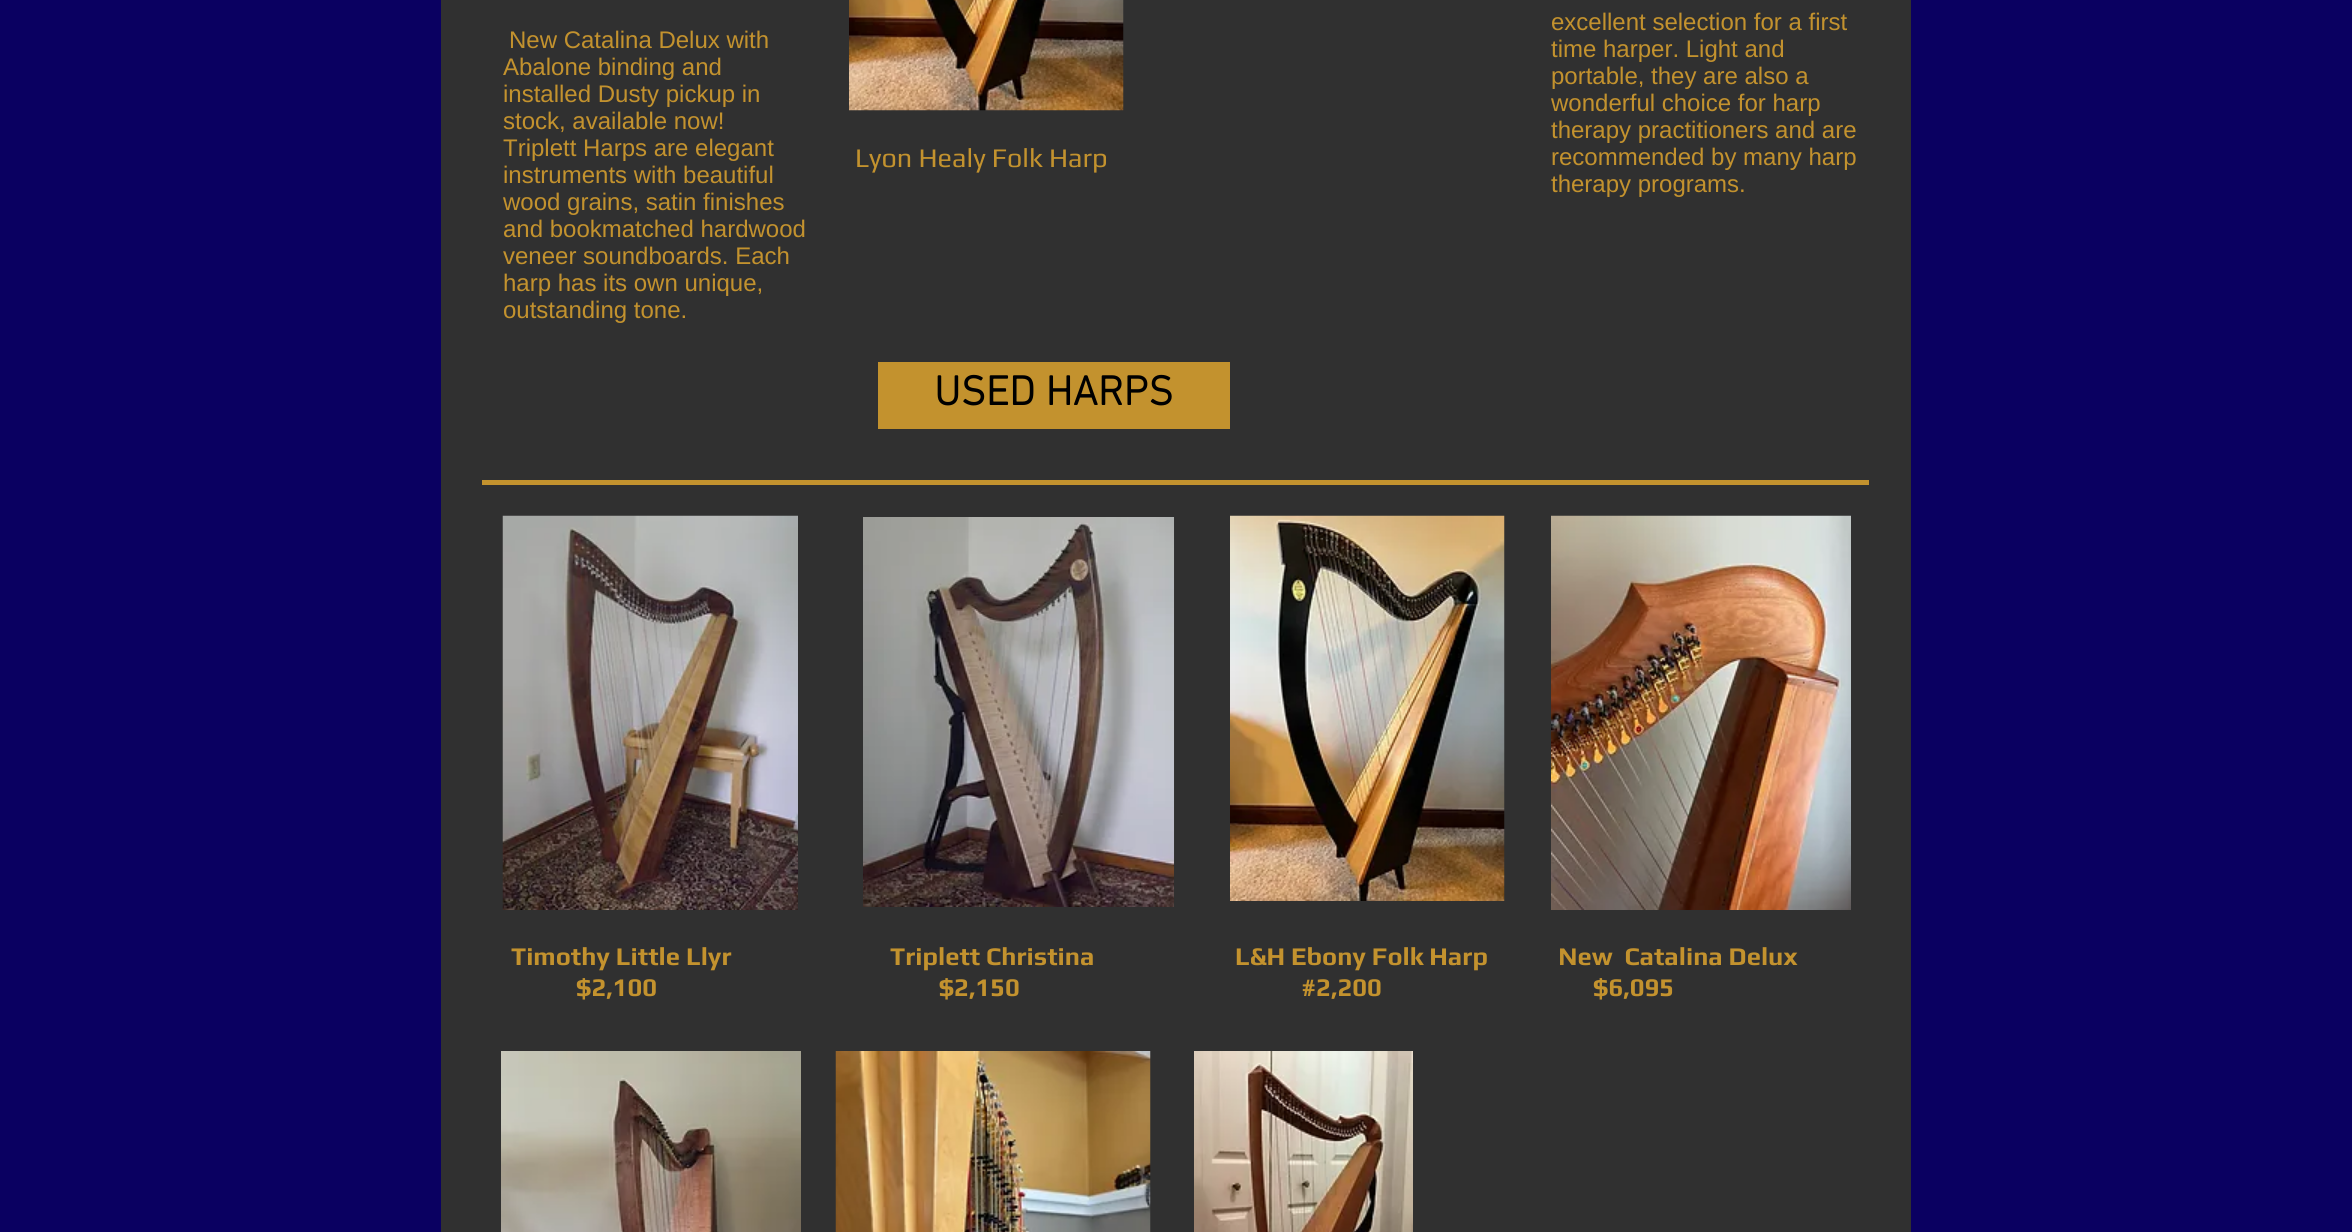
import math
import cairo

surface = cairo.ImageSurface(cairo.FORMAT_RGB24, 2352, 1232)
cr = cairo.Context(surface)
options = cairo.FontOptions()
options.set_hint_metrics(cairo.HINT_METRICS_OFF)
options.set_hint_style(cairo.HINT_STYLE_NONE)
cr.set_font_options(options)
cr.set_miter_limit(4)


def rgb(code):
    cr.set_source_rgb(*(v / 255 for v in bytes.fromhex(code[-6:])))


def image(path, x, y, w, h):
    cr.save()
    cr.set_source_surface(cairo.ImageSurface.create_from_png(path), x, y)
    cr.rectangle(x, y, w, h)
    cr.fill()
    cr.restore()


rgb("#0a0061")
cr.paint()
rgb("#303030")
cr.rectangle(441, 0, 1470, 1232)
cr.fill()
image("img/1.png", 849, 0, 275, 111)
rgb("#c3922e")
cr.rectangle(878, 362, 352, 67)
cr.fill()
cr.rectangle(482, 480, 1387, 5)
cr.fill()
image("img/2.png", 502, 515, 296, 395)
image("img/3.png", 863, 517, 312, 390)
image("img/4.png", 1230, 515, 275, 386)
image("img/5.png", 1551, 515, 300, 395)
image("img/6.png", 501, 1051, 300, 181)
image("img/7.png", 835, 1051, 316, 181)
image("img/8.png", 1194, 1051, 219, 181)
cr.select_font_face("Liberation Sans")
cr.set_font_size(24)
for x, y, s in [
    (509, 48, "New Catalina Delux with"),
    (503, 75, "Abalone binding and"),
    (503, 102, "installed Dusty pickup in"),
    (503, 129, "stock, available now!"),
    (503, 156, "Triplett Harps are elegant"),
    (503, 183, "instruments with beautiful"),
    (503, 210, "wood grains, satin finishes"),
    (503, 237, "and bookmatched hardwood"),
    (503, 264, "veneer soundboards. Each"),
    (503, 291, "harp has its own unique,"),
    (503, 318, "outstanding tone."),
    (1551, 30, "excellent selection for a first"),
    (1551, 57, "time harper. Light and"),
    (1551, 84, "portable, they are also a"),
    (1551, 111, "wonderful choice for harp"),
    (1551, 138, "therapy practitioners and are"),
    (1551, 165, "recommended by many harp"),
    (1551, 192, "therapy programs."),
]:
    cr.move_to(x, y)
    cr.show_text(s)
cr.select_font_face("Play")
cr.set_font_size(27)
cr.move_to(855, 167)
cr.show_text("Lyon Healy Folk Harp")
cr.select_font_face("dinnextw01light", cairo.FONT_SLANT_NORMAL, cairo.FONT_WEIGHT_BOLD)
cr.set_font_size(42)
rgb("#000000")
cr.move_to(934, 405)
cr.show_text("USED HARPS")
cr.select_font_face("Play", cairo.FONT_SLANT_NORMAL, cairo.FONT_WEIGHT_BOLD)
cr.set_font_size(25.5)
rgb("#c3922e")
cr.move_to(511, 965)
cr.show_text("Timothy Little Llyr                           Triplett Christina                        L&H Ebony Folk Harp            New  Catalina Delux")
cr.move_to(576, 996)
cr.show_text("$2,100                                                $2,150                                                #2,200                                    $6,095")
surface.write_to_png("page.png")
